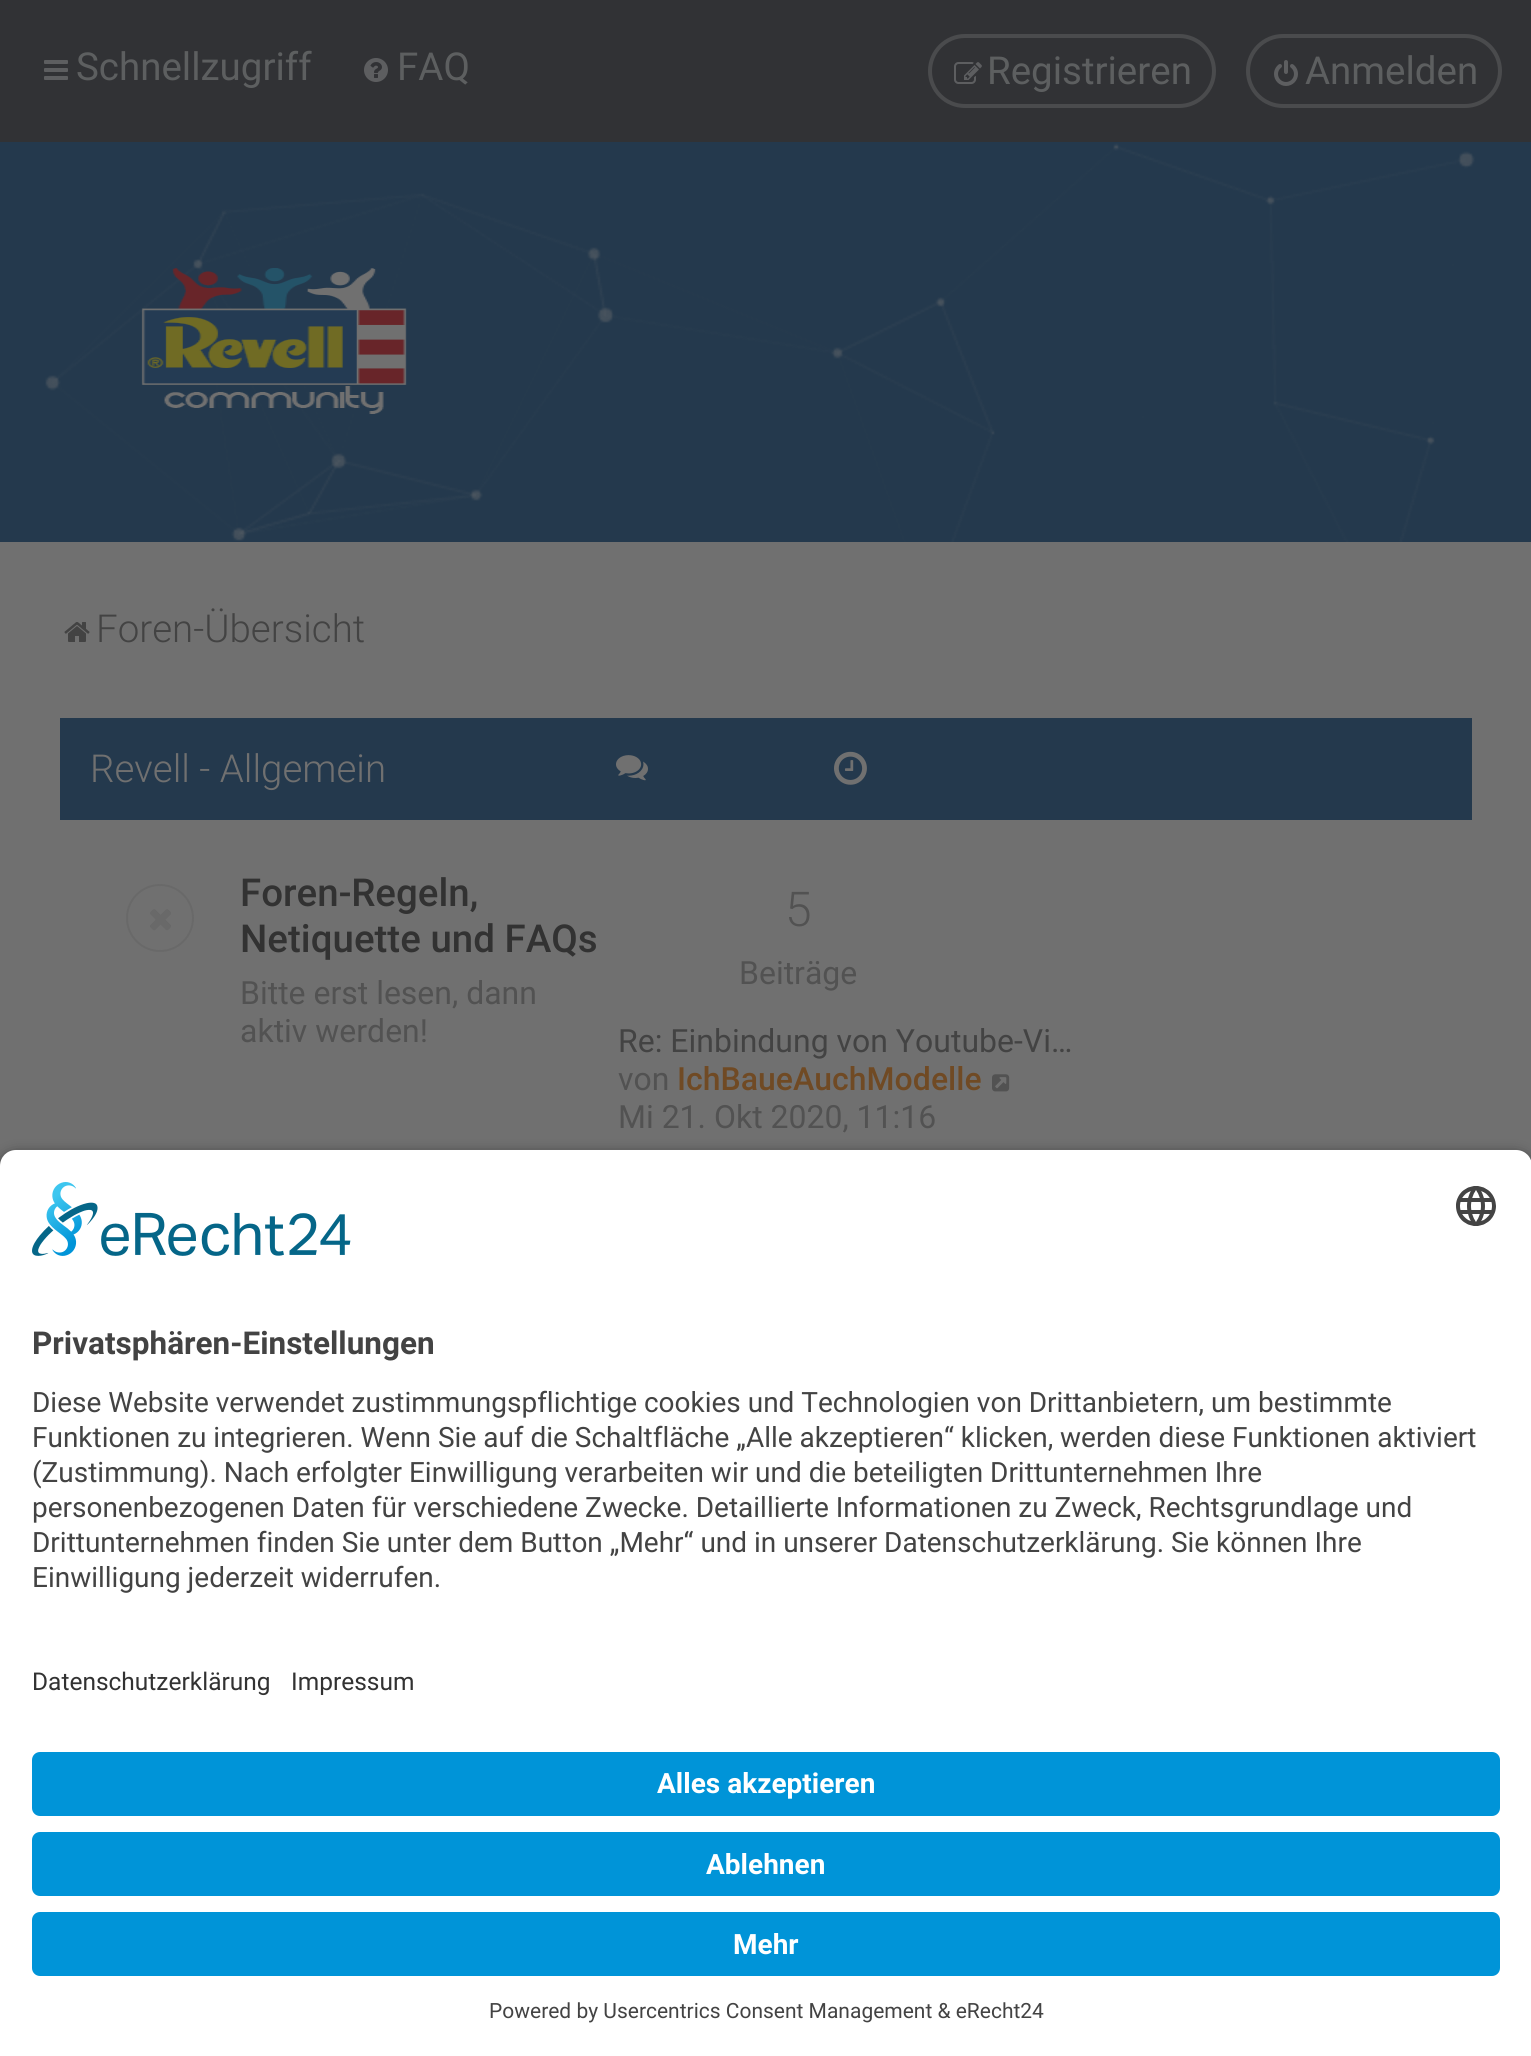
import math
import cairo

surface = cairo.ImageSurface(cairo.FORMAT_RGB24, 1531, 2056)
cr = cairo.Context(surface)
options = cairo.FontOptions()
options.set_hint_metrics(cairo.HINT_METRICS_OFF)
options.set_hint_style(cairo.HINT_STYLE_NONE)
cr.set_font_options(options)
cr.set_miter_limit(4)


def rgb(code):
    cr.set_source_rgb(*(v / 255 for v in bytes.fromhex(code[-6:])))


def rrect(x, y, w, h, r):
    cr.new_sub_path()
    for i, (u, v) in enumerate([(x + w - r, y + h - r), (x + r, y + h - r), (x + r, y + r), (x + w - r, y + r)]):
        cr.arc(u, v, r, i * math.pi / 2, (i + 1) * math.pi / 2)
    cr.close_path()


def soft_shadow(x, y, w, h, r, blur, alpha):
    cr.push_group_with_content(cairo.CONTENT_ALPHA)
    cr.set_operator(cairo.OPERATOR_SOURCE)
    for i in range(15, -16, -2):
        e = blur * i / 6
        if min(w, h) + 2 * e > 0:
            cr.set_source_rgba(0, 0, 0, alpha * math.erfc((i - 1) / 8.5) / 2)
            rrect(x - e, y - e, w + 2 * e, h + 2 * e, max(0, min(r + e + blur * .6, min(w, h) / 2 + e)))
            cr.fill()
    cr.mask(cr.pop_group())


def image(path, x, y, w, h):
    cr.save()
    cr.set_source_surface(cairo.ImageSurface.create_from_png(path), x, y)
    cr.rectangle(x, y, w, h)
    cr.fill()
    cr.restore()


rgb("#24394d")
cr.paint()
rgb("#313235")
cr.rectangle(0, 0, 1531, 142)
cr.fill()
image("img/1.png", 44, 60, 24, 20)
image("img/2.png", 364, 58, 24, 24)
rrect(930, 36, 284, 70, 35)
rgb("#4a4b4d")
cr.set_line_width(4)
cr.stroke()
image("img/3.png", 954, 62, 28, 22)
rrect(1248, 36, 252, 70, 35)
cr.stroke()
image("img/4.png", 1274, 60, 24, 26)
image("img/5.png", 45, 143, 1430, 399)
image("img/6.png", 141, 268, 266, 146)
rgb("#707070")
cr.rectangle(0, 542, 1531, 624)
cr.fill()
image("img/7.png", 64, 622, 26, 20)
rgb("#24394d")
cr.rectangle(60, 718, 1412, 102)
cr.fill()
image("img/8.png", 616, 755, 32, 26)
image("img/9.png", 834, 751, 33, 34)
cr.arc(160, 918, 33, 0, 2 * math.pi)
rgb("#696969")
cr.set_line_width(2)
cr.stroke()
image("img/10.png", 150, 909, 21, 22)
image("img/11.png", 992, 1074, 18, 18)
rgb("#000000")
soft_shadow(0, 1156, 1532, 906, 16, 7, 0.8)
rgb("#ffffff")
cr.new_path()
cr.move_to(16, 1150)
cr.line_to(1516, 1150)
cr.curve_to(1525, 1150, 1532, 1157, 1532, 1166)
cr.line_to(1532, 1636)
cr.line_to(0, 1636)
cr.line_to(0, 1166)
cr.curve_to(0, 1157, 7, 1150, 16, 1150)
cr.close_path()
cr.fill()
image("img/12.png", 32, 1182, 319, 74)
image("img/13.png", 1456, 1186, 40, 40)
cr.rectangle(0, 1636, 1531, 420)
cr.fill()
rgb("#0094d8")
rrect(32, 1752, 1468, 64, 8)
cr.fill()
rrect(32, 1832, 1468, 64, 8)
cr.fill()
rrect(32, 1912, 1468, 64, 8)
cr.fill()
cr.select_font_face("Roboto")
cr.set_font_size(38.5)
rgb("#5d5f60")
for x, y, s in [
    (76, 80, "Schnellzugriff"),
    (397, 80, "FAQ"),
    (987, 84, "Registrieren"),
    (1305, 84, "Anmelden"),
]:
    cr.move_to(x, y)
    cr.show_text(s)
cr.select_font_face("Roboto Light")
rgb("#434343")
cr.move_to(96, 642)
cr.show_text("Foren-Übersicht")
rgb("#707070")
cr.move_to(90, 782)
cr.show_text("Revell - Allgemein")
cr.select_font_face("Roboto Medium")
rgb("#323232")
cr.move_to(240, 906)
cr.show_text("Foren-Regeln,")
cr.move_to(240, 952)
cr.show_text("Netiquette und FAQs")
cr.select_font_face("Roboto")
cr.set_font_size(32)
rgb("#525252")
cr.move_to(240, 1004)
cr.show_text("Bitte erst lesen, dann")
cr.move_to(240, 1042)
cr.show_text("aktiv werden!")
cr.select_font_face("Roboto Light")
cr.set_font_size(48)
cr.move_to(785, 926)
cr.show_text("5")
cr.select_font_face("Roboto")
cr.set_font_size(32)
cr.move_to(739, 984)
cr.show_text("Beiträge")
rgb("#434343")
cr.move_to(618, 1052)
cr.show_text("Re: Einbindung von Youtube-Vi…")
rgb("#525252")
cr.move_to(618, 1090)
cr.show_text("von")
cr.select_font_face("Roboto Medium")
rgb("#704a24")
cr.move_to(677, 1090)
cr.show_text("IchBaueAuchModelle")
cr.select_font_face("Roboto")
rgb("#525252")
cr.move_to(618, 1128)
cr.show_text("Mi 21. Okt 2020, 11:16")
cr.select_font_face("Roboto", cairo.FONT_SLANT_NORMAL, cairo.FONT_WEIGHT_BOLD)
cr.set_font_size(31.5)
rgb("#434343")
cr.move_to(32, 1354)
cr.show_text("Privatsphären-Einstellungen")
cr.select_font_face("Roboto")
cr.set_font_size(28)
for x, y, s in [
    (32, 1412, "Diese Website verwendet zustimmungspflichtige cookies und Technologien von Drittanbietern, um bestimmte"),
    (32, 1447, "Funktionen zu integrieren. Wenn Sie auf die Schaltfläche „Alle akzeptieren“ klicken, werden diese Funktionen aktiviert"),
    (32, 1482, "(Zustimmung). Nach erfolgter Einwilligung verarbeiten wir und die beteiligten Drittunternehmen Ihre"),
    (32, 1517, "personenbezogenen Daten für verschiedene Zwecke. Detaillierte Informationen zu Zweck, Rechtsgrundlage und"),
    (32, 1552, "Drittunternehmen finden Sie unter dem Button „Mehr“ und in unserer Datenschutzerklärung. Sie können Ihre"),
    (32, 1587, "Einwilligung jederzeit widerrufen."),
]:
    cr.move_to(x, y)
    cr.show_text(s)
cr.set_font_size(24.5)
rgb("#323232")
cr.move_to(32, 1690)
cr.show_text("Datenschutzerklärung")
cr.move_to(291, 1690)
cr.show_text("Impressum")
cr.select_font_face("Roboto", cairo.FONT_SLANT_NORMAL, cairo.FONT_WEIGHT_BOLD)
cr.set_font_size(28)
rgb("#ffffff")
for x, y, s in [
    (657, 1793, "Alles akzeptieren"),
    (706, 1874, "Ablehnen"),
    (733, 1954, "Mehr"),
]:
    cr.move_to(x, y)
    cr.show_text(s)
cr.select_font_face("Roboto")
cr.set_font_size(21)
rgb("#434343")
cr.move_to(489, 2018)
cr.show_text("Powered by Usercentrics Consent Management & eRecht24")
surface.write_to_png("page.png")
